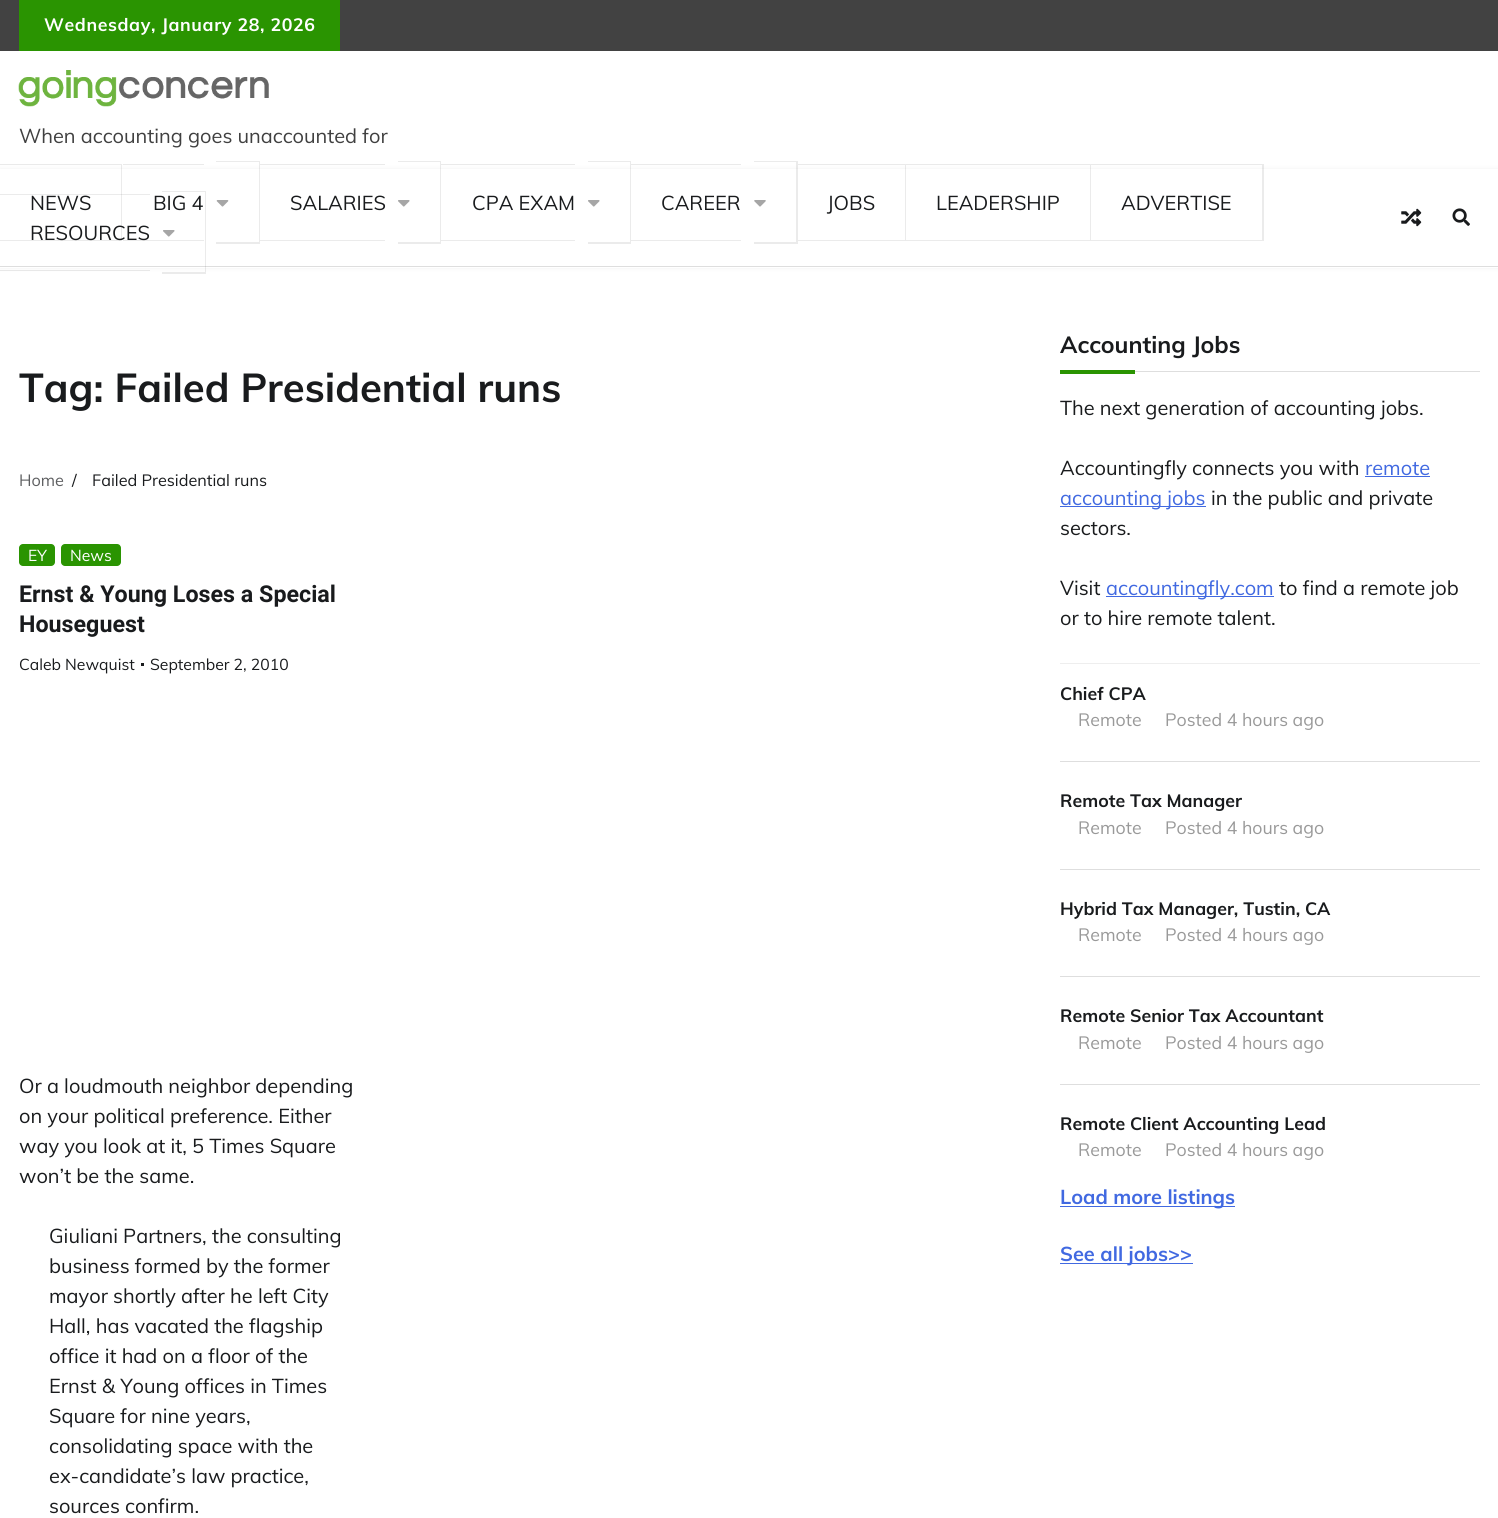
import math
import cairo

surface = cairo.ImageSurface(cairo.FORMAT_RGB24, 1498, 1518)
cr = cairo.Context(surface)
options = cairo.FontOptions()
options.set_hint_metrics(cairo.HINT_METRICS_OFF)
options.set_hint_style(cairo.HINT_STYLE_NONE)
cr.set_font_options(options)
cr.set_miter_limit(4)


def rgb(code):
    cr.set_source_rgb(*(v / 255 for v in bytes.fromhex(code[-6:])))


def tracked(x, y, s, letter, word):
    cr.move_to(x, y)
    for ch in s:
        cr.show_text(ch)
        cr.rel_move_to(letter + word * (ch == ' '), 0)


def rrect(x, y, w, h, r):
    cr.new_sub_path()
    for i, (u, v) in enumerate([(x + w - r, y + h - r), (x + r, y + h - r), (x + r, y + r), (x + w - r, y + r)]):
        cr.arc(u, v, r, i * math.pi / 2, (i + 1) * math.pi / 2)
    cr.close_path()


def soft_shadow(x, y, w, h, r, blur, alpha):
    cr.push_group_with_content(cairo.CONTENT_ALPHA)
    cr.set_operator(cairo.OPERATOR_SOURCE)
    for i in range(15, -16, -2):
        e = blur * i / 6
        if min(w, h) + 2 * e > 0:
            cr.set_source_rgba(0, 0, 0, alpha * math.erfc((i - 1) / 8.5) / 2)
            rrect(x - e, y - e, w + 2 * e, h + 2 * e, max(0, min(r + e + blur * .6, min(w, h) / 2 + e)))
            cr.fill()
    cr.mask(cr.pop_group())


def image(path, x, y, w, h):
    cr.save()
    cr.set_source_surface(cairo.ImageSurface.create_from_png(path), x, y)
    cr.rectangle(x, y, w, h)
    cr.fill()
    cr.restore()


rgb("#ffffff")
cr.paint()
rgb("#424242")
cr.rectangle(0, 0, 1498, 51)
cr.fill()
rgb("#2a9401")
cr.rectangle(19, 0, 321, 51)
cr.fill()
image("img/1.png", 18, 70, 251, 37)
rgb("#0a0a0a")
soft_shadow(0, 169, 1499, 99, 0, 2.5, 0.06)
rgb("#ffffff")
cr.rectangle(0, 169, 1498, 99)
cr.fill()
rgb("#dedede")
cr.rectangle(0, 266, 1498, 1)
cr.fill()
rgb("#eaeaea")
cr.new_path()
cr.move_to(0, 164)
cr.line_to(122, 164)
cr.line_to(121, 165)
cr.line_to(0, 165)
cr.close_path()
cr.fill()
cr.set_source_rgba(0, 0, 0, 0.08)
cr.new_path()
cr.move_to(122, 164)
cr.line_to(122, 241)
cr.line_to(121, 240)
cr.line_to(121, 165)
cr.close_path()
cr.fill()
cr.new_path()
cr.move_to(122, 241)
cr.line_to(0, 241)
cr.line_to(0, 240)
cr.line_to(121, 240)
cr.close_path()
cr.fill()
rgb("#eaeaea")
cr.rectangle(123, 164, 81, 1)
cr.fill()
rgb("#ebebeb")
cr.rectangle(123, 240, 81, 1)
cr.fill()
cr.new_path()
cr.move_to(216, 161)
cr.line_to(260, 161)
cr.line_to(259, 162)
cr.line_to(216, 162)
cr.close_path()
cr.fill()
cr.set_source_rgba(0, 0, 0, 0.08)
cr.new_path()
cr.move_to(260, 161)
cr.line_to(260, 244)
cr.line_to(259, 242)
cr.line_to(259, 162)
cr.close_path()
cr.fill()
cr.new_path()
cr.move_to(260, 244)
cr.line_to(216, 244)
cr.line_to(216, 242)
cr.line_to(259, 242)
cr.close_path()
cr.fill()
image("img/2.png", 216, 200, 13, 7)
rgb("#eaeaea")
cr.rectangle(260, 164, 125, 1)
cr.fill()
rgb("#ebebeb")
cr.rectangle(260, 240, 125, 1)
cr.fill()
cr.new_path()
cr.move_to(398, 161)
cr.line_to(441, 161)
cr.line_to(440, 162)
cr.line_to(398, 162)
cr.close_path()
cr.fill()
cr.set_source_rgba(0, 0, 0, 0.08)
cr.new_path()
cr.move_to(441, 161)
cr.line_to(441, 244)
cr.line_to(440, 242)
cr.line_to(440, 162)
cr.close_path()
cr.fill()
cr.new_path()
cr.move_to(441, 244)
cr.line_to(398, 244)
cr.line_to(398, 242)
cr.line_to(440, 242)
cr.close_path()
cr.fill()
image("img/3.png", 398, 200, 12, 7)
rgb("#eaeaea")
cr.rectangle(441, 164, 134, 1)
cr.fill()
rgb("#ebebeb")
cr.rectangle(441, 240, 134, 1)
cr.fill()
cr.new_path()
cr.move_to(588, 161)
cr.line_to(631, 161)
cr.line_to(630, 162)
cr.line_to(588, 162)
cr.close_path()
cr.fill()
cr.set_source_rgba(0, 0, 0, 0.08)
cr.new_path()
cr.move_to(631, 161)
cr.line_to(631, 244)
cr.line_to(630, 242)
cr.line_to(630, 162)
cr.close_path()
cr.fill()
cr.new_path()
cr.move_to(631, 244)
cr.line_to(588, 244)
cr.line_to(588, 242)
cr.line_to(630, 242)
cr.close_path()
cr.fill()
image("img/3.png", 588, 200, 12, 7)
rgb("#eaeaea")
cr.rectangle(631, 164, 110, 1)
cr.fill()
rgb("#ebebeb")
cr.rectangle(631, 240, 110, 1)
cr.fill()
cr.new_path()
cr.move_to(754, 161)
cr.line_to(798, 161)
cr.line_to(796, 162)
cr.line_to(754, 162)
cr.close_path()
cr.fill()
cr.set_source_rgba(0, 0, 0, 0.08)
cr.new_path()
cr.move_to(798, 161)
cr.line_to(798, 244)
cr.line_to(796, 242)
cr.line_to(796, 162)
cr.close_path()
cr.fill()
cr.new_path()
cr.move_to(798, 244)
cr.line_to(754, 244)
cr.line_to(754, 242)
cr.line_to(796, 242)
cr.close_path()
cr.fill()
image("img/4.png", 754, 200, 12, 7)
rgb("#eaeaea")
cr.new_path()
cr.move_to(798, 164)
cr.line_to(906, 164)
cr.line_to(905, 165)
cr.line_to(798, 165)
cr.close_path()
cr.fill()
cr.set_source_rgba(0, 0, 0, 0.08)
cr.new_path()
cr.move_to(906, 164)
cr.line_to(906, 241)
cr.line_to(905, 240)
cr.line_to(905, 165)
cr.close_path()
cr.fill()
cr.new_path()
cr.move_to(906, 241)
cr.line_to(798, 241)
cr.line_to(798, 240)
cr.line_to(905, 240)
cr.close_path()
cr.fill()
rgb("#eaeaea")
cr.new_path()
cr.move_to(906, 164)
cr.line_to(1091, 164)
cr.line_to(1090, 165)
cr.line_to(906, 165)
cr.close_path()
cr.fill()
cr.set_source_rgba(0, 0, 0, 0.08)
cr.new_path()
cr.move_to(1091, 164)
cr.line_to(1091, 241)
cr.line_to(1090, 240)
cr.line_to(1090, 165)
cr.close_path()
cr.fill()
cr.new_path()
cr.move_to(1091, 241)
cr.line_to(906, 241)
cr.line_to(906, 240)
cr.line_to(1090, 240)
cr.close_path()
cr.fill()
rgb("#eaeaea")
cr.new_path()
cr.move_to(1091, 164)
cr.line_to(1264, 164)
cr.line_to(1262, 165)
cr.line_to(1091, 165)
cr.close_path()
cr.fill()
cr.set_source_rgba(0, 0, 0, 0.08)
cr.new_path()
cr.move_to(1264, 164)
cr.line_to(1264, 241)
cr.line_to(1262, 240)
cr.line_to(1262, 165)
cr.close_path()
cr.fill()
cr.new_path()
cr.move_to(1264, 241)
cr.line_to(1091, 241)
cr.line_to(1091, 240)
cr.line_to(1262, 240)
cr.close_path()
cr.fill()
cr.rectangle(0, 194, 150, 1)
cr.fill()
rgb("#e8e8e8")
cr.rectangle(0, 270, 150, 1)
cr.fill()
rgb("#ebebeb")
cr.new_path()
cr.move_to(162, 191)
cr.line_to(206, 191)
cr.line_to(205, 192)
cr.line_to(162, 192)
cr.close_path()
cr.fill()
cr.set_source_rgba(0, 0, 0, 0.08)
cr.new_path()
cr.move_to(206, 191)
cr.line_to(206, 274)
cr.line_to(205, 272)
cr.line_to(205, 192)
cr.close_path()
cr.fill()
cr.new_path()
cr.move_to(206, 274)
cr.line_to(162, 274)
cr.line_to(162, 272)
cr.line_to(205, 272)
cr.close_path()
cr.fill()
image("img/3.png", 163, 230, 12, 7)
image("img/5.png", 1401, 208, 21, 19)
image("img/6.png", 1452, 208, 18, 18)
rgb("#2a9401")
rrect(19, 544, 36, 22, 4)
cr.fill()
rrect(61, 544, 60, 22, 4)
cr.fill()
for x, y, w, h, color in [
    (141, 663, 3, 3, "#191b1d"),
    (1135, 371, 345, 1, "#dedede"),
    (1060, 370, 75, 4, "#2a9401"),
    (1365, 476, 65, 1, "#4169e1"),
    (1060, 506, 146, 1, "#4169e1"),
    (1106, 596, 168, 1, "#4169e1"),
    (1060, 663, 420, 1, "#eeeeee"),
    (1060, 761, 420, 1, "#dedede"),
    (1060, 869, 420, 1, "#dedede"),
    (1060, 976, 420, 1, "#dedede"),
    (1060, 1084, 420, 1, "#dedede"),
    (1060, 1206, 175, 1, "#4169e1"),
    (1060, 1263, 133, 1, "#4169e1"),
]:
    rgb(color)
    cr.rectangle(x, y, w, h)
    cr.fill()
cr.select_font_face("Muli", cairo.FONT_SLANT_NORMAL, cairo.FONT_WEIGHT_BOLD)
cr.set_font_size(17.75)
rgb("#ffffff")
tracked(44, 31, "Wednesday, January 28, 2026", 0.6, 0)
cr.select_font_face("Muli")
cr.set_font_size(20)
rgb("#404040")
cr.move_to(19, 143)
cr.show_text("When accounting goes unaccounted for")
rgb("#191b1d")
for x, y, s in [
    (30, 210, "NEWS"),
    (153, 210, "BIG 4"),
    (290, 210, "SALARIES"),
    (472, 210, "CPA EXAM"),
    (661, 210, "CAREER"),
    (827, 210, "JOBS"),
    (936, 210, "LEADERSHIP"),
    (1121, 210, "ADVERTISE"),
    (30, 240, "RESOURCES"),
]:
    cr.move_to(x, y)
    cr.show_text(s)
cr.select_font_face("Muli", cairo.FONT_SLANT_NORMAL, cairo.FONT_WEIGHT_BOLD)
cr.set_font_size(40)
cr.move_to(19, 402)
cr.show_text("Tag: Failed Presidential runs")
cr.select_font_face("Muli")
cr.set_font_size(16.25)
rgb("#5e5f61")
cr.move_to(19, 486)
cr.show_text("Home")
rgb("#191b1d")
cr.move_to(72, 486)
cr.show_text("/")
cr.move_to(92, 486)
cr.show_text("Failed Presidential runs")
cr.set_font_size(15.75)
rgb("#ffffff")
cr.move_to(28, 561)
cr.show_text("EY")
cr.move_to(70, 561)
cr.show_text("News")
cr.select_font_face("Roboto", cairo.FONT_SLANT_NORMAL, cairo.FONT_WEIGHT_BOLD)
cr.set_font_size(23.25)
rgb("#191b1d")
cr.move_to(19, 602)
cr.show_text("Ernst & Young Loses a Special")
cr.move_to(19, 632)
cr.show_text("Houseguest")
cr.select_font_face("Muli")
cr.set_font_size(15.75)
cr.move_to(19, 670)
cr.show_text("Caleb Newquist")
cr.move_to(150, 670)
cr.show_text("September 2, 2010")
cr.set_font_size(20)
for x, y, s in [
    (19, 1093, "Or a loudmouth neighbor depending"),
    (19, 1123, "on your political preference. Either"),
    (19, 1153, "way you look at it, 5 Times Square"),
    (19, 1183, "won’t be the same."),
    (49, 1243, "Giuliani Partners, the consulting"),
    (49, 1273, "business formed by the former"),
    (49, 1303, "mayor shortly after he left City"),
    (49, 1333, "Hall, has vacated the flagship"),
    (49, 1363, "office it had on a floor of the"),
    (49, 1393, "Ernst & Young offices in Times"),
    (49, 1423, "Square for nine years,"),
    (49, 1453, "consolidating space with the"),
    (49, 1483, "ex-candidate’s law practice,"),
    (49, 1513, "sources confirm."),
]:
    cr.move_to(x, y)
    cr.show_text(s)
cr.select_font_face("Muli", cairo.FONT_SLANT_NORMAL, cairo.FONT_WEIGHT_BOLD)
cr.set_font_size(23.25)
cr.move_to(1060, 353)
cr.show_text("Accounting Jobs")
cr.select_font_face("Muli")
cr.set_font_size(20)
cr.move_to(1060, 415)
cr.show_text("The next generation of accounting jobs.")
cr.move_to(1060, 475)
cr.show_text("Accountingfly connects you with")
rgb("#4169e1")
cr.move_to(1365, 475)
cr.show_text("remote")
cr.move_to(1060, 505)
cr.show_text("accounting jobs")
rgb("#191b1d")
for x, y, s in [
    (1211, 505, "in the public and private"),
    (1060, 535, "sectors."),
    (1060, 595, "Visit"),
]:
    cr.move_to(x, y)
    cr.show_text(s)
rgb("#4169e1")
cr.move_to(1106, 595)
cr.show_text("accountingfly.com")
rgb("#191b1d")
cr.move_to(1279, 595)
cr.show_text("to find a remote job")
cr.move_to(1060, 625)
cr.show_text("or to hire remote talent.")
cr.select_font_face("Muli", cairo.FONT_SLANT_NORMAL, cairo.FONT_WEIGHT_BOLD)
cr.set_font_size(17.75)
cr.move_to(1060, 700)
cr.show_text("Chief CPA")
cr.select_font_face("Muli")
rgb("#999999")
cr.move_to(1078, 726)
cr.show_text("Remote")
cr.move_to(1165, 726)
cr.show_text("Posted 4 hours ago")
cr.select_font_face("Muli", cairo.FONT_SLANT_NORMAL, cairo.FONT_WEIGHT_BOLD)
rgb("#191b1d")
cr.move_to(1060, 807)
cr.show_text("Remote Tax Manager")
cr.select_font_face("Muli")
rgb("#999999")
cr.move_to(1078, 834)
cr.show_text("Remote")
cr.move_to(1165, 834)
cr.show_text("Posted 4 hours ago")
cr.select_font_face("Muli", cairo.FONT_SLANT_NORMAL, cairo.FONT_WEIGHT_BOLD)
rgb("#191b1d")
cr.move_to(1060, 915)
cr.show_text("Hybrid Tax Manager, Tustin, CA")
cr.select_font_face("Muli")
rgb("#999999")
cr.move_to(1078, 941)
cr.show_text("Remote")
cr.move_to(1165, 941)
cr.show_text("Posted 4 hours ago")
cr.select_font_face("Muli", cairo.FONT_SLANT_NORMAL, cairo.FONT_WEIGHT_BOLD)
rgb("#191b1d")
cr.move_to(1060, 1022)
cr.show_text("Remote Senior Tax Accountant")
cr.select_font_face("Muli")
rgb("#999999")
cr.move_to(1078, 1049)
cr.show_text("Remote")
cr.move_to(1165, 1049)
cr.show_text("Posted 4 hours ago")
cr.select_font_face("Muli", cairo.FONT_SLANT_NORMAL, cairo.FONT_WEIGHT_BOLD)
rgb("#191b1d")
cr.move_to(1060, 1130)
cr.show_text("Remote Client Accounting Lead")
cr.select_font_face("Muli")
rgb("#999999")
cr.move_to(1078, 1156)
cr.show_text("Remote")
cr.move_to(1165, 1156)
cr.show_text("Posted 4 hours ago")
cr.select_font_face("Muli", cairo.FONT_SLANT_NORMAL, cairo.FONT_WEIGHT_BOLD)
cr.set_font_size(20)
rgb("#4169e1")
cr.move_to(1060, 1204)
cr.show_text("Load more listings")
cr.move_to(1060, 1261)
cr.show_text("See all jobs>>")
surface.write_to_png("page.png")
